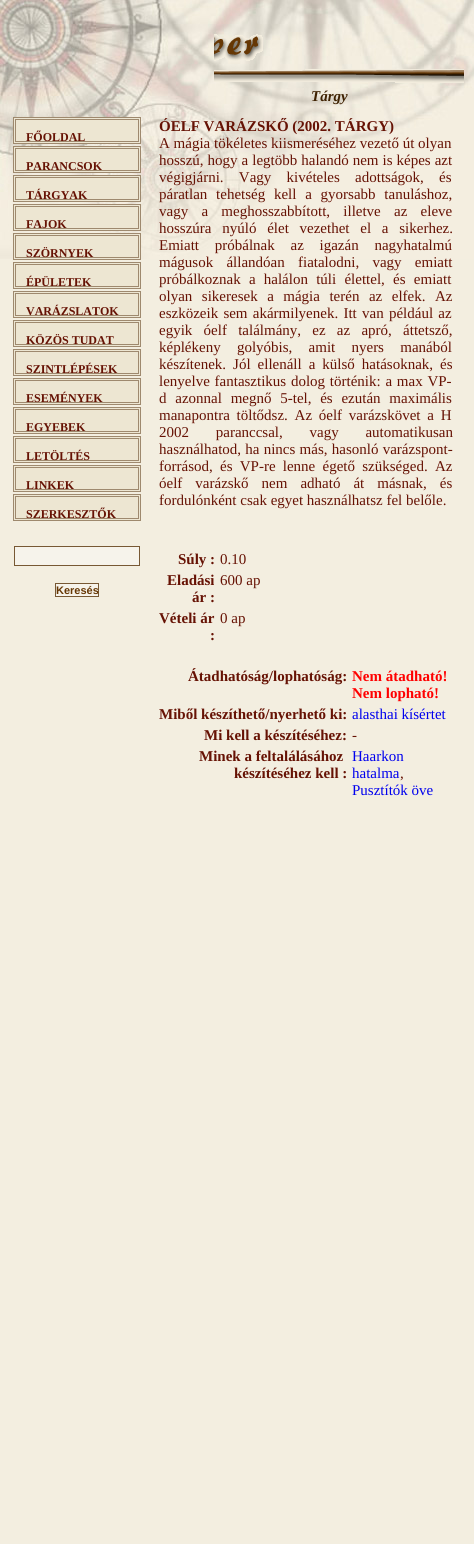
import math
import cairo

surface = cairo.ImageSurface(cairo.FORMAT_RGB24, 474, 1544)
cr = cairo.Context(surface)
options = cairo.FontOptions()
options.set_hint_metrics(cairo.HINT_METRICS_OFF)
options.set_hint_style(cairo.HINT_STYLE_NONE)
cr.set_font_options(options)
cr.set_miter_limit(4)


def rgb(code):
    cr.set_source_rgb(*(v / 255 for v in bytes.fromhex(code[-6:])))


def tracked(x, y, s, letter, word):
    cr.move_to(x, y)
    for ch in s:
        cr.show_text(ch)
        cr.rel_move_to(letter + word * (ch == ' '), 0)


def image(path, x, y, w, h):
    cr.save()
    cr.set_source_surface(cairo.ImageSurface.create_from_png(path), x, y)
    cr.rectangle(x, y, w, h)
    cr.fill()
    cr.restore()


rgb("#f3eee0")
cr.paint()
image("img/1.png", 0, 0, 474, 259)
image("img/2.png", 214, 34, 250, 49)
rgb("#ede6d2")
cr.rectangle(13.5, 117.5, 127, 26)
cr.fill_preserve()
rgb("#9e896e")
cr.set_line_width(1)
cr.stroke()
cr.rectangle(15.5, 119.5, 123, 22)
cr.stroke()
rgb("#ede6d2")
cr.rectangle(13.5, 146.5, 127, 26)
cr.fill_preserve()
rgb("#9e896e")
cr.stroke()
cr.rectangle(15.5, 148.5, 123, 22)
cr.stroke()
rgb("#ede6d2")
cr.rectangle(13.5, 175.5, 127, 26)
cr.fill_preserve()
rgb("#9e896e")
cr.stroke()
cr.rectangle(15.5, 177.5, 123, 22)
cr.stroke()
rgb("#ede6d2")
cr.rectangle(13.5, 204.5, 127, 26)
cr.fill_preserve()
rgb("#9e896e")
cr.stroke()
cr.rectangle(15.5, 206.5, 123, 22)
cr.stroke()
rgb("#ede6d2")
cr.rectangle(13.5, 233.5, 127, 26)
cr.fill_preserve()
rgb("#9e896e")
cr.stroke()
cr.rectangle(15.5, 235.5, 123, 22)
cr.stroke()
rgb("#ede6d2")
cr.rectangle(13.5, 262.5, 127, 26)
cr.fill_preserve()
rgb("#9e896e")
cr.stroke()
cr.rectangle(15.5, 264.5, 123, 22)
cr.stroke()
rgb("#ede6d2")
cr.rectangle(13.5, 291.5, 127, 26)
cr.fill_preserve()
rgb("#9e896e")
cr.stroke()
cr.rectangle(15.5, 293.5, 123, 22)
cr.stroke()
rgb("#ede6d2")
cr.rectangle(13.5, 320.5, 127, 26)
cr.fill_preserve()
rgb("#9e896e")
cr.stroke()
cr.rectangle(15.5, 322.5, 123, 22)
cr.stroke()
rgb("#ede6d2")
cr.rectangle(13.5, 349.5, 127, 26)
cr.fill_preserve()
rgb("#9e896e")
cr.stroke()
cr.rectangle(15.5, 351.5, 123, 22)
cr.stroke()
rgb("#ede6d2")
cr.rectangle(13.5, 378.5, 127, 26)
cr.fill_preserve()
rgb("#9e896e")
cr.stroke()
cr.rectangle(15.5, 380.5, 123, 22)
cr.stroke()
rgb("#ede6d2")
cr.rectangle(13.5, 407.5, 127, 26)
cr.fill_preserve()
rgb("#9e896e")
cr.stroke()
cr.rectangle(15.5, 409.5, 123, 22)
cr.stroke()
rgb("#ede6d2")
cr.rectangle(13.5, 436.5, 127, 26)
cr.fill_preserve()
rgb("#9e896e")
cr.stroke()
cr.rectangle(15.5, 438.5, 123, 22)
cr.stroke()
rgb("#ede6d2")
cr.rectangle(13.5, 465.5, 127, 26)
cr.fill_preserve()
rgb("#9e896e")
cr.stroke()
cr.rectangle(15.5, 467.5, 123, 22)
cr.stroke()
rgb("#ede6d2")
cr.rectangle(13.5, 494.5, 127, 26)
cr.fill_preserve()
rgb("#9e896e")
cr.stroke()
cr.rectangle(15.5, 496.5, 123, 22)
cr.stroke()
rgb("#f6f3eb")
cr.rectangle(14.5, 546.5, 125, 19)
cr.fill_preserve()
rgb("#775834")
cr.stroke()
rgb("#f6f3eb")
cr.rectangle(55.5, 583.5, 43, 13)
cr.fill_preserve()
rgb("#775834")
cr.stroke()
cr.select_font_face("Liberation Serif", cairo.FONT_SLANT_ITALIC, cairo.FONT_WEIGHT_BOLD)
cr.set_font_size(15)
rgb("#3f2202")
cr.move_to(311, 101)
cr.show_text("Tárgy")
cr.select_font_face("Liberation Serif", cairo.FONT_SLANT_NORMAL, cairo.FONT_WEIGHT_BOLD)
cr.set_font_size(12)
rgb("#661204")
cr.move_to(26, 141)
cr.show_text("FŐOLDAL")
cr.select_font_face("Liberation Sans", cairo.FONT_SLANT_NORMAL, cairo.FONT_WEIGHT_BOLD)
cr.set_font_size(11)
rgb("#663704")
cr.move_to(56, 594)
cr.show_text("Keresés")
cr.select_font_face("Liberation Serif", cairo.FONT_SLANT_NORMAL, cairo.FONT_WEIGHT_BOLD)
cr.set_font_size(15)
rgb("#661204")
cr.move_to(159, 131)
cr.show_text("ÓELF VARÁZSKŐ (2002. TÁRGY)")
cr.select_font_face("Liberation Serif")
cr.move_to(159, 148)
cr.show_text("A mágia tökéletes kiismeréséhez vezető út olyan")
tracked(159, 165, "hosszú, hogy a legtöbb halandó nem is képes azt", 0, 0.25)
tracked(159, 182, "végigjárni. Vagy kivételes adottságok, és", 0, 11.5)
tracked(159, 199, "páratlan tehetség kell a gyorsabb tanuláshoz,", 0, 5)
tracked(159, 216, "vagy a meghosszabbított, illetve az eleve", 0, 9.5)
tracked(159, 233, "hosszúra nyúló élet vezethet el a sikerhez.", 0, 7)
tracked(159, 250, "Emiatt próbálnak az igazán nagyhatalmú", 0, 12)
tracked(159, 267, "mágusok állandóan fiatalodni, vagy emiatt", 0, 9.5)
tracked(159, 284, "próbálkoznak a halálon túli élettel, és emiatt", 0, 4.5)
tracked(159, 301, "olyan sikeresek a mágia terén az elfek. Az", 0, 5.75)
tracked(159, 318, "eszközeik sem akármilyenek. Itt van például az", 0, 1.5)
tracked(159, 335, "egyik óelf találmány, ez az apró, áttetsző,", 0, 7.5)
tracked(159, 352, "képlékeny golyóbis, amit nyers manából", 0, 12.5)
tracked(159, 369, "készítenek. Jól ellenáll a külső hatásoknak, és", 0, 3.25)
tracked(159, 386, "lenyelve fantasztikus dolog történik: a max VP-", 0, 1)
tracked(159, 403, "d azonnal megnő 5-tel, és ezután maximális", 0, 5)
tracked(159, 420, "manapontra töltődsz. Az óelf varázskövet a H", 0, 3)
tracked(159, 437, "2002 paranccsal, vagy automatikusan", 0, 23)
tracked(159, 454, "használhatod, ha nincs más, hasonló varázspont-", 0, 0.5)
tracked(159, 471, "forrásod, és VP-re lenne égető szükséged. Az", 0, 3.5)
tracked(159, 488, "óelf varázskő nem adható át másnak, és", 0, 9.25)
cr.move_to(159, 505)
cr.show_text("fordulónként csak egyet használhatsz fel belőle.")
cr.select_font_face("Liberation Serif", cairo.FONT_SLANT_NORMAL, cairo.FONT_WEIGHT_BOLD)
cr.move_to(178, 564)
cr.show_text("Súly :")
cr.select_font_face("Liberation Serif")
cr.move_to(220, 564)
cr.show_text("0.10")
cr.select_font_face("Liberation Serif", cairo.FONT_SLANT_NORMAL, cairo.FONT_WEIGHT_BOLD)
cr.move_to(167, 585)
cr.show_text("Eladási")
cr.move_to(192, 602)
cr.show_text("ár :")
cr.select_font_face("Liberation Serif")
cr.move_to(220, 585)
cr.show_text("600 ap")
cr.select_font_face("Liberation Serif", cairo.FONT_SLANT_NORMAL, cairo.FONT_WEIGHT_BOLD)
cr.move_to(159, 623)
cr.show_text("Vételi ár")
cr.move_to(210, 640)
cr.show_text(":")
cr.select_font_face("Liberation Serif")
cr.move_to(220, 623)
cr.show_text("0 ap")
cr.select_font_face("Liberation Serif", cairo.FONT_SLANT_NORMAL, cairo.FONT_WEIGHT_BOLD)
cr.move_to(188, 681)
cr.show_text("Átadhatóság/lophatóság:")
rgb("#ff0000")
cr.move_to(352, 681)
cr.show_text("Nem átadható!")
cr.move_to(352, 698)
cr.show_text("Nem lopható!")
rgb("#661204")
cr.move_to(159, 719)
cr.show_text("Miből készíthető/nyerhető ki:")
cr.select_font_face("Liberation Serif")
rgb("#0000ee")
cr.move_to(352, 719)
cr.show_text("alasthai kísértet")
cr.select_font_face("Liberation Serif", cairo.FONT_SLANT_NORMAL, cairo.FONT_WEIGHT_BOLD)
rgb("#661204")
cr.move_to(204, 740)
cr.show_text("Mi kell a készítéséhez:")
cr.select_font_face("Liberation Serif")
cr.move_to(352, 740)
cr.show_text("-")
cr.select_font_face("Liberation Serif", cairo.FONT_SLANT_NORMAL, cairo.FONT_WEIGHT_BOLD)
cr.move_to(199, 761)
cr.show_text("Minek a feltalálásához")
cr.move_to(234, 778)
cr.show_text("készítéséhez kell :")
cr.select_font_face("Liberation Serif")
rgb("#0000ee")
cr.move_to(352, 761)
cr.show_text("Haarkon")
cr.move_to(352, 778)
cr.show_text("hatalma")
rgb("#661204")
cr.move_to(400, 778)
cr.show_text(",")
rgb("#0000ee")
cr.move_to(352, 795)
cr.show_text("Pusztítók öve")
cr.select_font_face("Liberation Serif", cairo.FONT_SLANT_NORMAL, cairo.FONT_WEIGHT_BOLD)
cr.set_font_size(12)
rgb("#661204")
for x, y, s in [
    (26, 170, "PARANCSOK"),
    (26, 199, "TÁRGYAK"),
    (26, 228, "FAJOK"),
    (26, 257, "SZÖRNYEK"),
    (26, 286, "ÉPÜLETEK"),
    (26, 315, "VARÁZSLATOK"),
    (26, 344, "KÖZÖS TUDAT"),
    (26, 373, "SZINTLÉPÉSEK"),
    (26, 402, "ESEMÉNYEK"),
    (26, 431, "EGYEBEK"),
    (26, 460, "LETÖLTÉS"),
    (26, 489, "LINKEK"),
    (26, 518, "SZERKESZTŐK"),
]:
    cr.move_to(x, y)
    cr.show_text(s)
surface.write_to_png("page.png")
